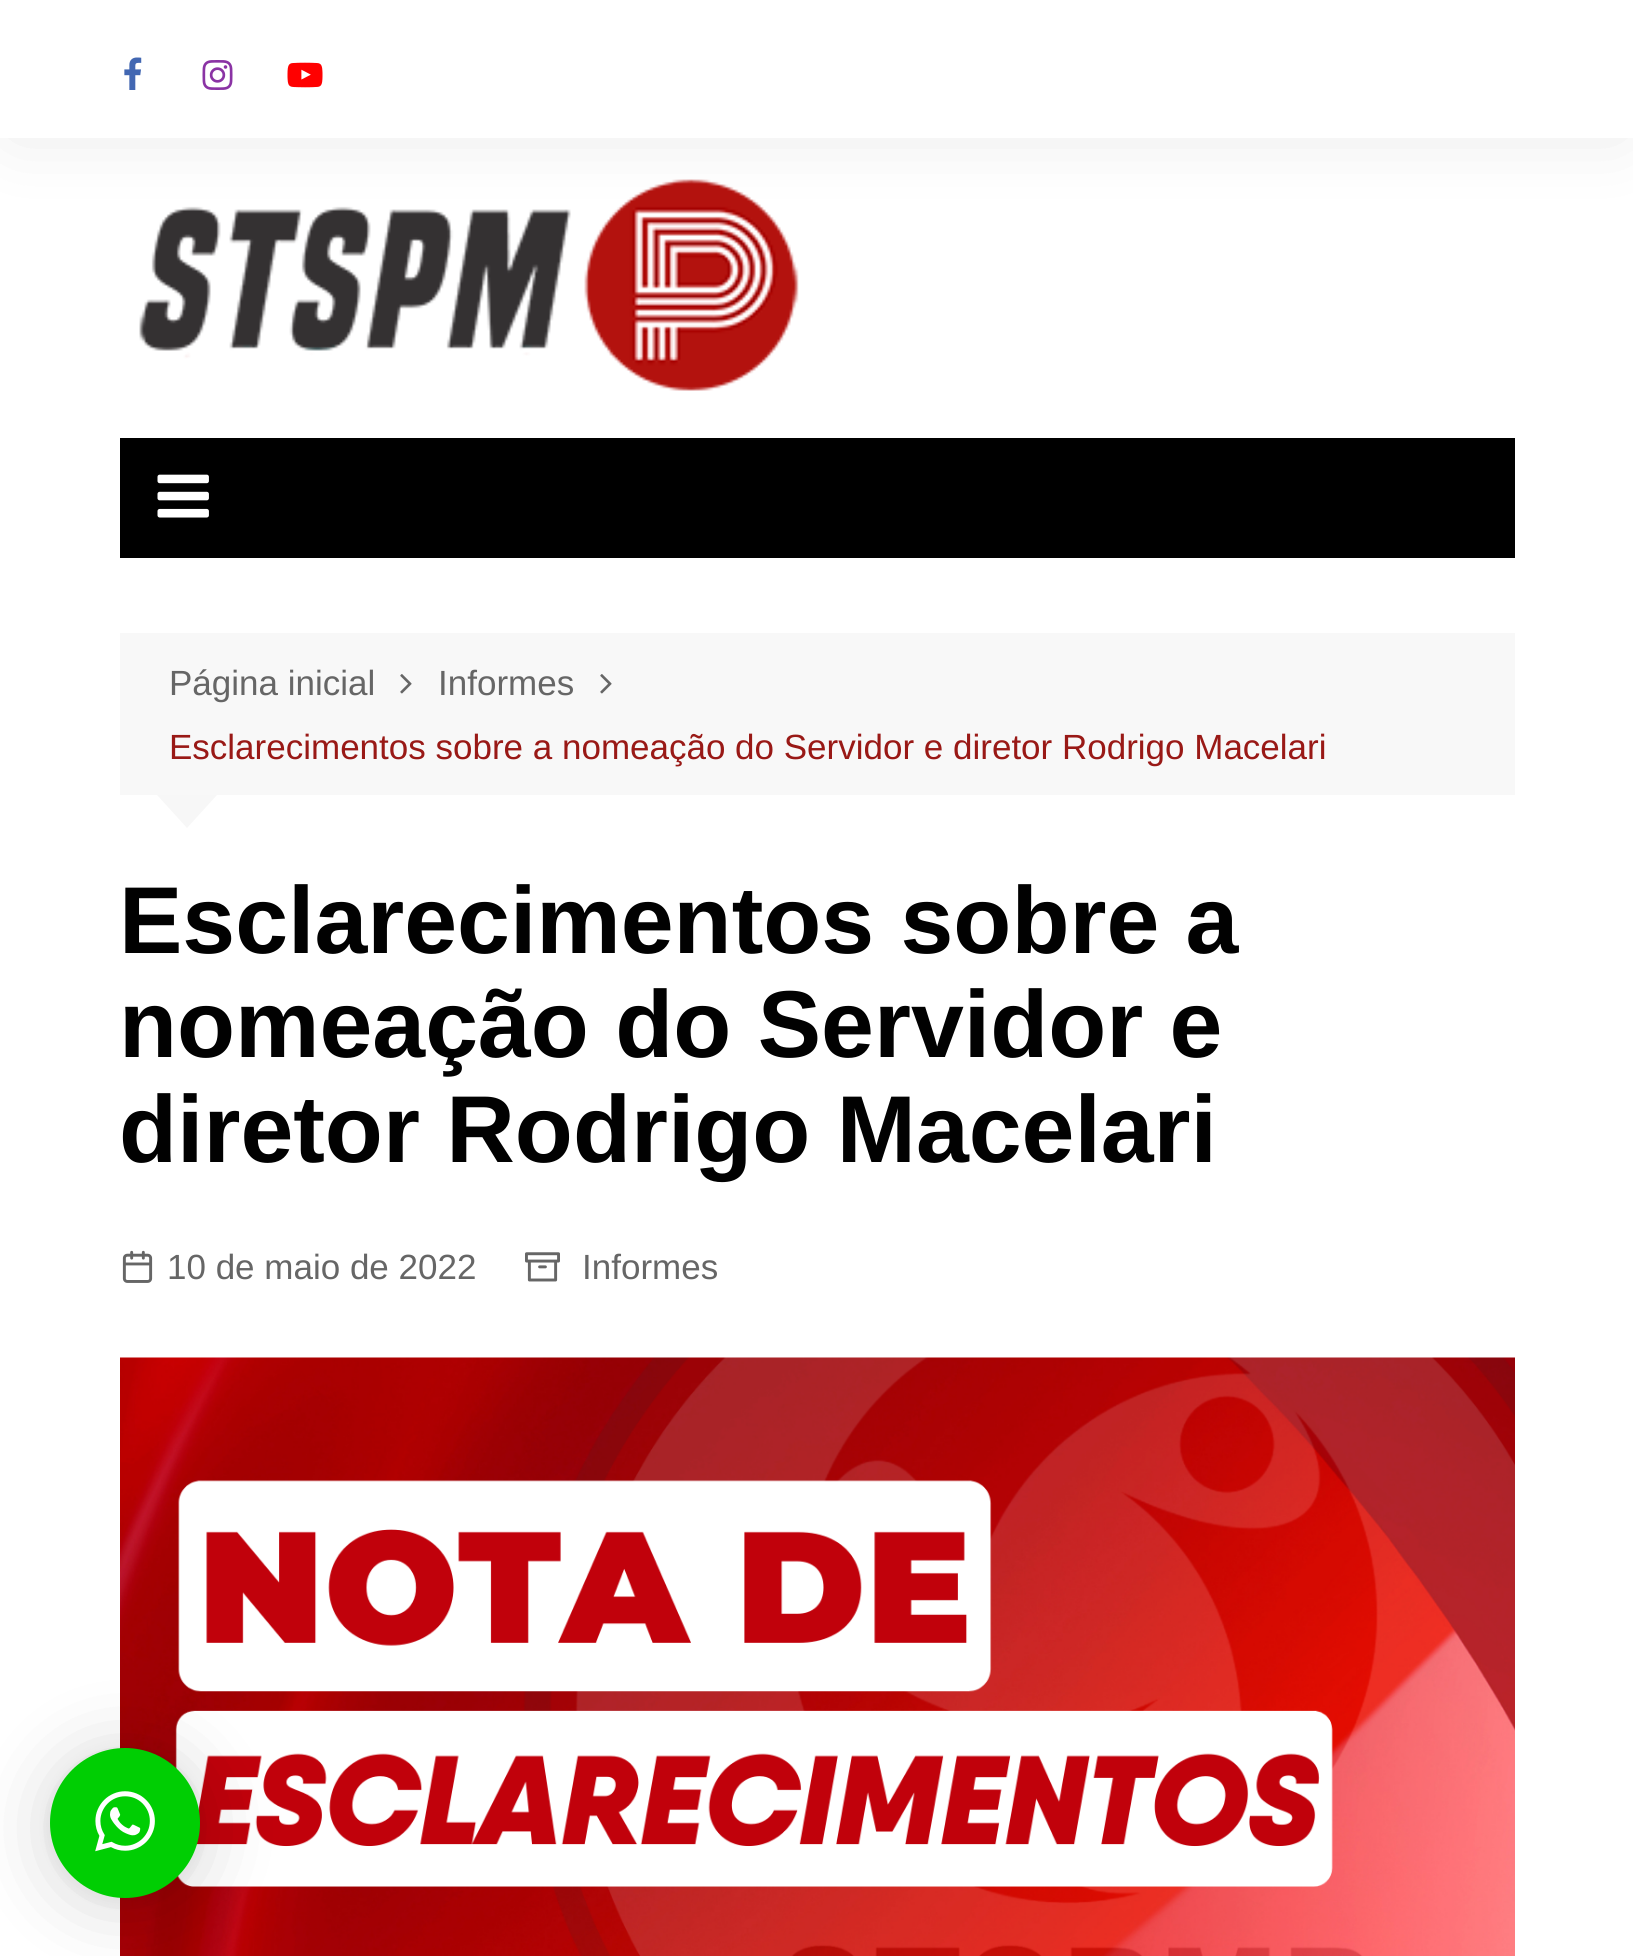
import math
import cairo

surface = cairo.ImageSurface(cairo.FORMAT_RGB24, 1633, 1956)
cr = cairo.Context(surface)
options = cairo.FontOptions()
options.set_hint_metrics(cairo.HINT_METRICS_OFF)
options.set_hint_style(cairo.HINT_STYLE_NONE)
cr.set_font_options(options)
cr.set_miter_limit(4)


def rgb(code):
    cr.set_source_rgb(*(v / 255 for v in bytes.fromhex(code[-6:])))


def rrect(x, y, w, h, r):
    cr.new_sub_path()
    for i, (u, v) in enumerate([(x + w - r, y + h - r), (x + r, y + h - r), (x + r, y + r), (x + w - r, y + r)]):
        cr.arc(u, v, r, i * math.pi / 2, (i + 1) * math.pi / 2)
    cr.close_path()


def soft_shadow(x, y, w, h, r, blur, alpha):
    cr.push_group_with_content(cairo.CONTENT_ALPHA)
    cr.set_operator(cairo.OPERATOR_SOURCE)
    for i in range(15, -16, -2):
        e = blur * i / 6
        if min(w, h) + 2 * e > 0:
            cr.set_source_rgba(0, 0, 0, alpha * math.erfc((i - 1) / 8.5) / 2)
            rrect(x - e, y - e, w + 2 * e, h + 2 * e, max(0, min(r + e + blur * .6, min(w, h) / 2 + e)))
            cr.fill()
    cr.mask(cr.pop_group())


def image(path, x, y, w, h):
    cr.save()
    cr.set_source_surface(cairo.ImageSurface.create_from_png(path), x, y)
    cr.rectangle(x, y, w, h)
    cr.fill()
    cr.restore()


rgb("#ffffff")
cr.paint()
rgb("#000000")
soft_shadow(13, 18, 1610, 112, 0, 37.5, 0.1)
rgb("#ffffff")
cr.rectangle(0, 0, 1633, 138)
cr.fill()
image("img/1.png", 124, 57, 18, 33)
image("img/2.png", 202, 60, 31, 30)
image("img/3.png", 287, 62, 36, 26)
image("img/4.png", 139, 179, 660, 212)
rgb("#000000")
cr.rectangle(120, 438, 1395, 120)
cr.fill()
image("img/5.png", 157, 474, 52, 44)
rgb("#f8f8f8")
cr.rectangle(120, 633, 1395, 162)
cr.fill()
image("img/6.png", 400, 674, 12, 20)
image("img/6.png", 600, 674, 12, 20)
rgb("#f7f7f7")
cr.new_path()
cr.move_to(157, 795)
cr.line_to(217, 795)
cr.line_to(187, 828)
cr.close_path()
cr.fill()
image("img/7.png", 122, 1250, 31, 33)
image("img/8.png", 525, 1252, 35, 30)
image("img/9.png", 120, 1357, 1395, 599)
rgb("#000000")
soft_shadow(50, 1753, 150, 150, 75, 40, 0.16)
soft_shadow(50, 1750, 150, 150, 75, 7.5, 0.06)
rgb("#00ce03")
cr.arc(125, 1823, 75, 0, 2 * math.pi)
cr.fill()
image("img/10.png", 95, 1791, 60, 61)
cr.select_font_face("Liberation Sans")
cr.set_font_size(35)
rgb("#666666")
cr.move_to(169, 695)
cr.show_text("Página inicial")
cr.move_to(438, 695)
cr.show_text("Informes")
rgb("#991916")
cr.move_to(169, 759)
cr.show_text("Esclarecimentos sobre a nomeação do Servidor e diretor Rodrigo Macelari")
cr.select_font_face("Liberation Sans", cairo.FONT_SLANT_NORMAL, cairo.FONT_WEIGHT_BOLD)
cr.set_font_size(95)
rgb("#010101")
for x, y, s in [
    (119, 953, "Esclarecimentos sobre a"),
    (119, 1057, "nomeação do Servidor e"),
    (119, 1162, "diretor Rodrigo Macelari"),
]:
    cr.move_to(x, y)
    cr.show_text(s)
cr.select_font_face("Liberation Sans")
cr.set_font_size(35)
rgb("#666666")
cr.move_to(167, 1279)
cr.show_text("10 de maio de 2022")
cr.move_to(582, 1279)
cr.show_text("Informes")
surface.write_to_png("page.png")
